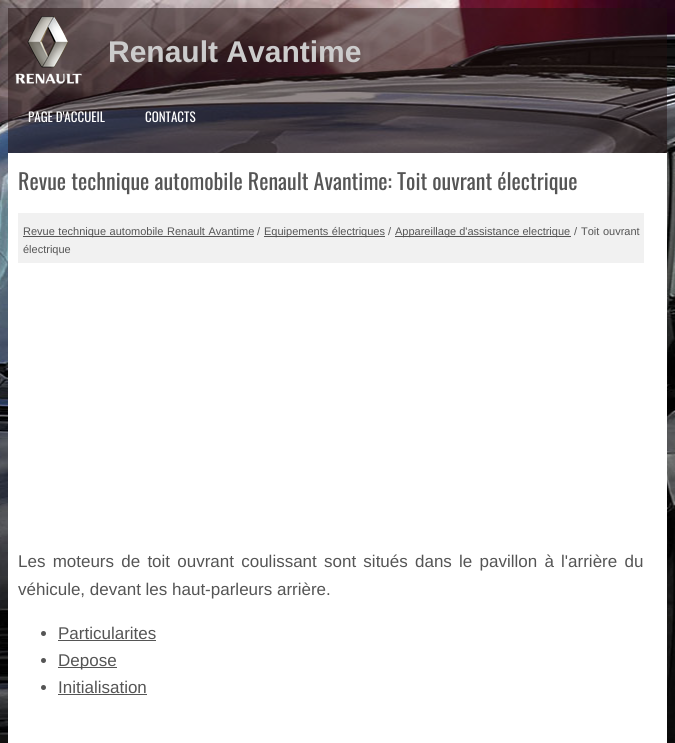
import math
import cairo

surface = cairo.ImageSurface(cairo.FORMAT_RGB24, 675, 743)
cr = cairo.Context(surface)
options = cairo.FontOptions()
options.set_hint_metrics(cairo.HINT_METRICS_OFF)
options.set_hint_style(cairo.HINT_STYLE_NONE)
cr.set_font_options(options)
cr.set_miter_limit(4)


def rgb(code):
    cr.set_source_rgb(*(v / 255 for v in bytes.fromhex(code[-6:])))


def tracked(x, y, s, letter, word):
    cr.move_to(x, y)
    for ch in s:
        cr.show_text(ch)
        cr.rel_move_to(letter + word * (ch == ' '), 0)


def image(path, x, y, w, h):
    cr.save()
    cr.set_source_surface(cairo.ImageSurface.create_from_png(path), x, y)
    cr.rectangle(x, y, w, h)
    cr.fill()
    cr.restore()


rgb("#ffffff")
cr.paint()
image("img/1.png", 0, 0, 675, 743)
cr.set_source_rgba(0.133, 0.063, 0.063, 0.5)
cr.rectangle(8, 8, 659, 145)
cr.fill()
image("img/2.png", 15, 16, 67, 68)
for x, y, w, h, color in [
    (8, 153, 659, 590, "#ffffff"),
    (18, 213, 626, 50, "#f1f1f1"),
    (23, 236, 231, 1, "#555555"),
    (264, 236, 121, 1, "#555555"),
    (395, 236, 176, 1, "#555555"),
]:
    rgb(color)
    cr.rectangle(x, y, w, h)
    cr.fill()
cr.arc(43.5, 633.5, 2.5, 0, 2 * math.pi)
cr.fill()
cr.rectangle(58, 640, 98, 1)
cr.fill()
cr.arc(43.5, 660.5, 2.5, 0, 2 * math.pi)
cr.fill()
cr.rectangle(58, 667, 59, 1)
cr.fill()
cr.arc(43.5, 687.5, 2.5, 0, 2 * math.pi)
cr.fill()
cr.rectangle(58, 694, 89, 1)
cr.fill()
cr.select_font_face("Liberation Sans", cairo.FONT_SLANT_NORMAL, cairo.FONT_WEIGHT_BOLD)
cr.set_font_size(30)
rgb("#cccccc")
cr.move_to(108, 62)
cr.show_text("Renault Avantime")
cr.select_font_face("Oswald")
cr.set_font_size(13)
rgb("#ffffff")
cr.move_to(28, 122)
cr.show_text("PAGE D'ACCUEIL")
cr.move_to(145, 122)
cr.show_text("CONTACTS")
cr.set_font_size(22)
rgb("#555555")
cr.move_to(18, 190)
cr.show_text("Revue technique automobile Renault Avantime: Toit ouvrant électrique")
cr.select_font_face("Liberation Sans")
cr.set_font_size(11)
tracked(23, 235, "Revue technique automobile Renault Avantime", 0, 0.5)
cr.move_to(257, 235)
cr.show_text("/")
tracked(264, 235, "Equipements électriques", 0, 0.5)
for x, y, s in [
    (388, 235, "/"),
    (395, 235, "Appareillage d'assistance electrique"),
    (574, 235, "/"),
]:
    cr.move_to(x, y)
    cr.show_text(s)
tracked(581, 235, "Toit ouvrant", 0, 0.5)
cr.move_to(23, 253)
cr.show_text("électrique")
cr.set_font_size(17)
tracked(18, 567, "Les moteurs de toit ouvrant coulissant sont situés dans le pavillon à l'arrière du", 0, 2.5)
for x, y, s in [
    (18, 595, "véhicule, devant les haut-parleurs arrière."),
    (58, 639, "Particularites"),
    (58, 666, "Depose"),
    (58, 693, "Initialisation"),
]:
    cr.move_to(x, y)
    cr.show_text(s)
surface.write_to_png("page.png")
